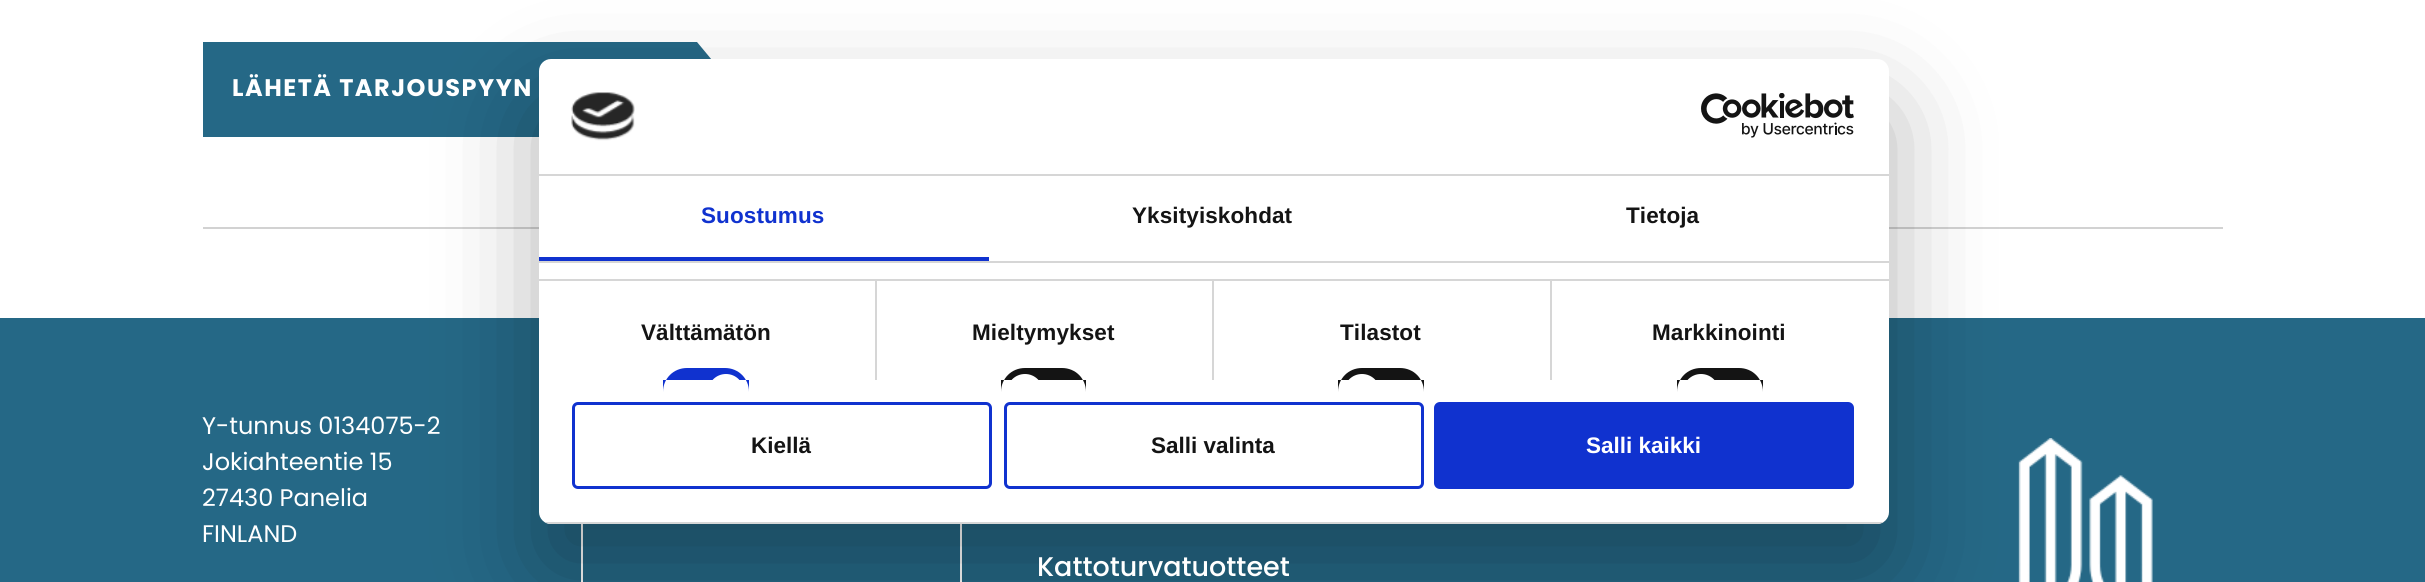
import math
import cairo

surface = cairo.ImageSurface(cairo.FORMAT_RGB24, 2425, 582)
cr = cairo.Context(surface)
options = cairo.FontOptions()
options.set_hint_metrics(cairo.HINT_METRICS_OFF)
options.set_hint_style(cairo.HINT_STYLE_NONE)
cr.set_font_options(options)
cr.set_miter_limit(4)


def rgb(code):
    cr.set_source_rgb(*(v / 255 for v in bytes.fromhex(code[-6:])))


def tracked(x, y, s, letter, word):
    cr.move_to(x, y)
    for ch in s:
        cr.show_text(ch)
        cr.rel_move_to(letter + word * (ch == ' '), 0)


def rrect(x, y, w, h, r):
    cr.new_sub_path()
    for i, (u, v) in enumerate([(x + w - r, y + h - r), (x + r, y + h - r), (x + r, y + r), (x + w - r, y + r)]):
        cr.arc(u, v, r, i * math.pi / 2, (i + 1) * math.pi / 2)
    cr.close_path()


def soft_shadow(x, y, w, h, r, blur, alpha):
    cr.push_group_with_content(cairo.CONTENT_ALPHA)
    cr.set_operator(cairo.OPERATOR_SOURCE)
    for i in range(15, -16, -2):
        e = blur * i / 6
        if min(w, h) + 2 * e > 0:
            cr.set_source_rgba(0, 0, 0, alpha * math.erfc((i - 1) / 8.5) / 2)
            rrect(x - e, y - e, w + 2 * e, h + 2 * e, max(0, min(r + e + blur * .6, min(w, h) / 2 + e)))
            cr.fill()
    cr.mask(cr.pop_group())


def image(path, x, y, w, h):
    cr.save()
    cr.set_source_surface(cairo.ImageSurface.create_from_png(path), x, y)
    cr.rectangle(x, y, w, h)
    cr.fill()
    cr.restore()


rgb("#ffffff")
cr.paint()
rgb("#d2d2d2")
cr.rectangle(203, 227, 2020, 2)
cr.fill()
rgb("#256886")
cr.rectangle(203, 42, 470, 95)
cr.fill()
cr.new_path()
cr.move_to(673, 42)
cr.line_to(673, 136)
cr.line_to(697, 136)
cr.line_to(736, 89)
cr.line_to(697, 42)
cr.close_path()
cr.fill()
for x, y, w, h, color in [
    (0, 318, 2425, 264, "#256886"),
    (581, 524, 2, 58, "#ffffff"),
    (960, 524, 2, 58, "#ffffff"),
]:
    rgb(color)
    cr.rectangle(x, y, w, h)
    cr.fill()
image("img/3.png", 2018, 438, 135, 144)
rgb("#000000")
soft_shadow(539, 107, 1350, 465, 12, 51, 0.3)
rgb("#ffffff")
rrect(539, 59, 1350, 465, 12)
cr.fill()
rgb("#d6d6d6")
cr.rectangle(539, 174, 1350, 2)
cr.fill()
image("img/1.png", 571, 92, 64, 49)
image("img/2.png", 1701, 93, 153, 45)
for x, y, w, h, color in [
    (539, 261, 1350, 2, "#d6d6d6"),
    (539, 257, 450, 4, "#1032cf"),
    (539, 279, 1350, 2, "#d6d6d6"),
    (875, 281, 2, 99, "#d6d6d6"),
]:
    rgb(color)
    cr.rectangle(x, y, w, h)
    cr.fill()
rgb("#1032cf")
cr.new_path()
cr.move_to(687, 368)
cr.line_to(725, 368)
cr.curve_to(738.5, 368, 749, 378.5, 749, 392)
cr.line_to(749, 380)
cr.line_to(663, 380)
cr.line_to(663, 392)
cr.curve_to(663, 378.5, 673.5, 368, 687, 368)
cr.close_path()
cr.fill()
rgb("#ffffff")
cr.new_path()
cr.move_to(726, 374)
cr.curve_to(736, 374, 744, 382, 744, 392)
cr.line_to(744, 380)
cr.line_to(708, 380)
cr.line_to(708, 392)
cr.curve_to(708, 382, 716, 374, 726, 374)
cr.close_path()
cr.fill()
rgb("#d6d6d6")
cr.rectangle(1212, 281, 2, 99)
cr.fill()
rgb("#141414")
cr.new_path()
cr.move_to(1025, 368)
cr.line_to(1062, 368)
cr.curve_to(1075.5, 368, 1086, 378.5, 1086, 392)
cr.line_to(1086, 380)
cr.line_to(1001, 380)
cr.line_to(1001, 392)
cr.curve_to(1001, 378.5, 1011.5, 368, 1025, 368)
cr.close_path()
cr.fill()
rgb("#ffffff")
cr.new_path()
cr.move_to(1025, 374)
cr.curve_to(1035, 374, 1043, 382, 1043, 392)
cr.line_to(1043, 380)
cr.line_to(1007, 380)
cr.line_to(1007, 392)
cr.curve_to(1007, 382, 1015, 374, 1025, 374)
cr.close_path()
cr.fill()
rgb("#d6d6d6")
cr.rectangle(1550, 281, 2, 99)
cr.fill()
rgb("#141414")
cr.new_path()
cr.move_to(1362, 368)
cr.line_to(1400, 368)
cr.curve_to(1413.5, 368, 1424, 378.5, 1424, 392)
cr.line_to(1424, 380)
cr.line_to(1338, 380)
cr.line_to(1338, 392)
cr.curve_to(1338, 378.5, 1348.5, 368, 1362, 368)
cr.close_path()
cr.fill()
rgb("#ffffff")
cr.new_path()
cr.move_to(1362, 374)
cr.curve_to(1372, 374, 1380, 382, 1380, 392)
cr.line_to(1380, 380)
cr.line_to(1344, 380)
cr.line_to(1344, 392)
cr.curve_to(1344, 382, 1352, 374, 1362, 374)
cr.close_path()
cr.fill()
rgb("#141414")
cr.new_path()
cr.move_to(1701, 368)
cr.line_to(1739, 368)
cr.curve_to(1752.5, 368, 1763, 378.5, 1763, 392)
cr.line_to(1763, 380)
cr.line_to(1677, 380)
cr.line_to(1677, 392)
cr.curve_to(1677, 378.5, 1687.5, 368, 1701, 368)
cr.close_path()
cr.fill()
rgb("#ffffff")
cr.new_path()
cr.move_to(1701, 374)
cr.curve_to(1711, 374, 1719, 382, 1719, 392)
cr.line_to(1719, 380)
cr.line_to(1683, 380)
cr.line_to(1683, 392)
cr.curve_to(1683, 382, 1691, 374, 1701, 374)
cr.close_path()
cr.fill()
cr.save()
rrect(539, 59, 1350, 465, 12)
cr.clip()
rgb("#d6d6d6")
cr.rectangle(539, 522, 1350, 2)
cr.fill()
cr.restore()
rrect(573.5, 403.5, 417, 84, 4.5)
rgb("#1032cf")
cr.set_line_width(3)
cr.stroke()
rrect(1005.5, 403.5, 417, 84, 4.5)
cr.stroke()
rrect(1435.5, 403.5, 417, 84, 4.5)
cr.fill_preserve()
cr.stroke()
cr.select_font_face("Poppins", cairo.FONT_SLANT_NORMAL, cairo.FONT_WEIGHT_BOLD)
cr.set_font_size(24)
rgb("#ffffff")
tracked(232, 96, "LÄHETÄ TARJOUSPYYN", 1.5, 0)
cr.select_font_face("Liberation Sans", cairo.FONT_SLANT_NORMAL, cairo.FONT_WEIGHT_BOLD)
cr.set_font_size(22.5)
rgb("#1032cf")
tracked(701, 223, "Suostumus", 0.1, 0)
rgb("#141414")
for x, y, s in [
    (1132, 223, "Yksityiskohdat"),
    (1626, 223, "Tietoja"),
    (641, 340, "Välttämätön"),
    (972, 340, "Mieltymykset"),
    (1340, 340, "Tilastot"),
    (1652, 340, "Markkinointi"),
]:
    tracked(x, y, s, 0.1, 0)
cr.move_to(751, 453)
cr.show_text("Kiellä")
cr.move_to(1151, 453)
cr.show_text("Salli valinta")
rgb("#ffffff")
cr.move_to(1586, 453)
cr.show_text("Salli kaikki")
cr.select_font_face("Poppins")
cr.set_font_size(24)
for x, y, s in [
    (202, 434, "Y-tunnus 0134075-2"),
    (202, 470, "Jokiahteentie 15"),
    (202, 506, "27430 Panelia"),
    (202, 542, "FINLAND"),
]:
    cr.move_to(x, y)
    cr.show_text(s)
cr.select_font_face("Poppins Medium")
cr.set_font_size(27)
cr.move_to(1037, 576)
cr.show_text("Kattoturvatuotteet")
surface.write_to_png("page.png")
